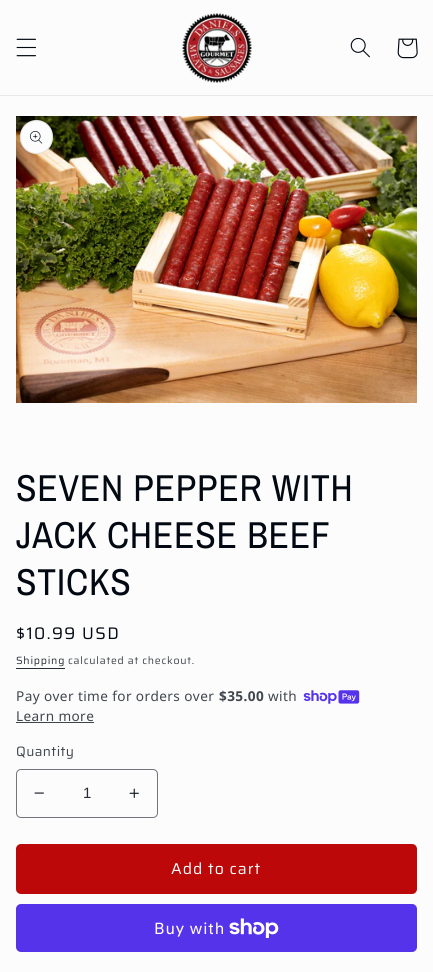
import math
import cairo

surface = cairo.ImageSurface(cairo.FORMAT_RGB24, 433, 972)
cr = cairo.Context(surface)
options = cairo.FontOptions()
options.set_hint_metrics(cairo.HINT_METRICS_OFF)
options.set_hint_style(cairo.HINT_STYLE_NONE)
cr.set_font_options(options)
cr.set_miter_limit(4)


def rgb(code):
    cr.set_source_rgb(*(v / 255 for v in bytes.fromhex(code[-6:])))


def tracked(x, y, s, letter, word):
    cr.move_to(x, y)
    for ch in s:
        cr.show_text(ch)
        cr.rel_move_to(letter + word * (ch == ' '), 0)


def rrect(x, y, w, h, r):
    cr.new_sub_path()
    for i, (u, v) in enumerate([(x + w - r, y + h - r), (x + r, y + h - r), (x + r, y + r), (x + w - r, y + r)]):
        cr.arc(u, v, r, i * math.pi / 2, (i + 1) * math.pi / 2)
    cr.close_path()


def image(path, x, y, w, h):
    cr.save()
    cr.set_source_surface(cairo.ImageSurface.create_from_png(path), x, y)
    cr.rectangle(x, y, w, h)
    cr.fill()
    cr.restore()


rgb("#fcfcfc")
cr.paint()
rgb("#e8e9e9")
cr.rectangle(0, 95, 433, 1)
cr.fill()
image("img/1.png", 16, 38, 20, 19)
image("img/2.png", 182, 13, 70, 70)
image("img/3.png", 350, 37, 20, 21)
image("img/4.png", 397, 38, 21, 21)
image("img/5.png", 16, 116, 401, 287)
rgb("#fcfcfc")
rrect(20, 120, 33, 34, 16.5)
cr.fill()
rrect(20.5, 120.5, 32, 33, 16)
cr.set_source_rgba(0.008, 0.035, 0.071, 0.1)
cr.set_line_width(1)
cr.stroke()
image("img/6.png", 30, 131, 13, 13)
rgb("#282d35")
cr.rectangle(16, 668, 49, 1)
cr.fill()
image("img/7.png", 303, 690, 57, 14)
rgb("#41464d")
cr.rectangle(16, 722, 78, 1)
cr.fill()
image("img/8.png", 34, 792, 10, 2)
image("img/9.png", 129, 788, 10, 10)
rrect(16.5, 769.5, 141, 48, 4.5)
rgb("#72767b")
cr.stroke()
rgb("#bc0808")
rrect(16, 844, 401, 50, 5)
cr.fill()
rgb("#5433eb")
rrect(16, 904, 401, 48, 5)
cr.fill()
image("img/10.png", 229, 918, 50, 20)
cr.select_font_face("Archivo Narrow")
cr.set_font_size(37.5)
rgb("#020912")
for x, y, s in [
    (16, 501, "SEVEN PEPPER WITH"),
    (16, 548, "JACK CHEESE BEEF"),
    (16, 595, "STICKS"),
]:
    tracked(x, y, s, 0.75, 0)
cr.select_font_face("Saira")
cr.set_font_size(16.75)
tracked(16, 639, "$10.99 USD", 1.4, 0)
cr.set_font_size(10.5)
rgb("#282d35")
tracked(16, 664, "Shipping", 0.75, 0)
rgb("#41464d")
tracked(68, 664, "calculated at checkout.", 0.75, 0)
cr.select_font_face("Noto Sans")
cr.set_font_size(13.6)
tracked(16, 701, "Pay over time for orders over", 0.4, 0)
cr.select_font_face("Noto Sans", cairo.FONT_SLANT_NORMAL, cairo.FONT_WEIGHT_BOLD)
tracked(219, 701, "$35.00", 0.4, 0)
cr.select_font_face("Noto Sans")
tracked(268, 701, "with", 0.4, 0)
tracked(16, 721, "Learn more", 0.4, 0)
cr.select_font_face("Saira")
tracked(16, 756, "Quantity", 0.4, 0)
cr.select_font_face("Liberation Sans")
cr.set_font_size(15)
rgb("#282d35")
cr.move_to(83, 798)
cr.show_text("1")
cr.select_font_face("Saira")
cr.set_font_size(15.75)
rgb("#ffffff")
tracked(171, 874, "Add to cart", 1, 0)
cr.select_font_face("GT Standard")
cr.set_font_size(16)
tracked(154, 934, "Buy with", 0.75, 0)
surface.write_to_png("page.png")
